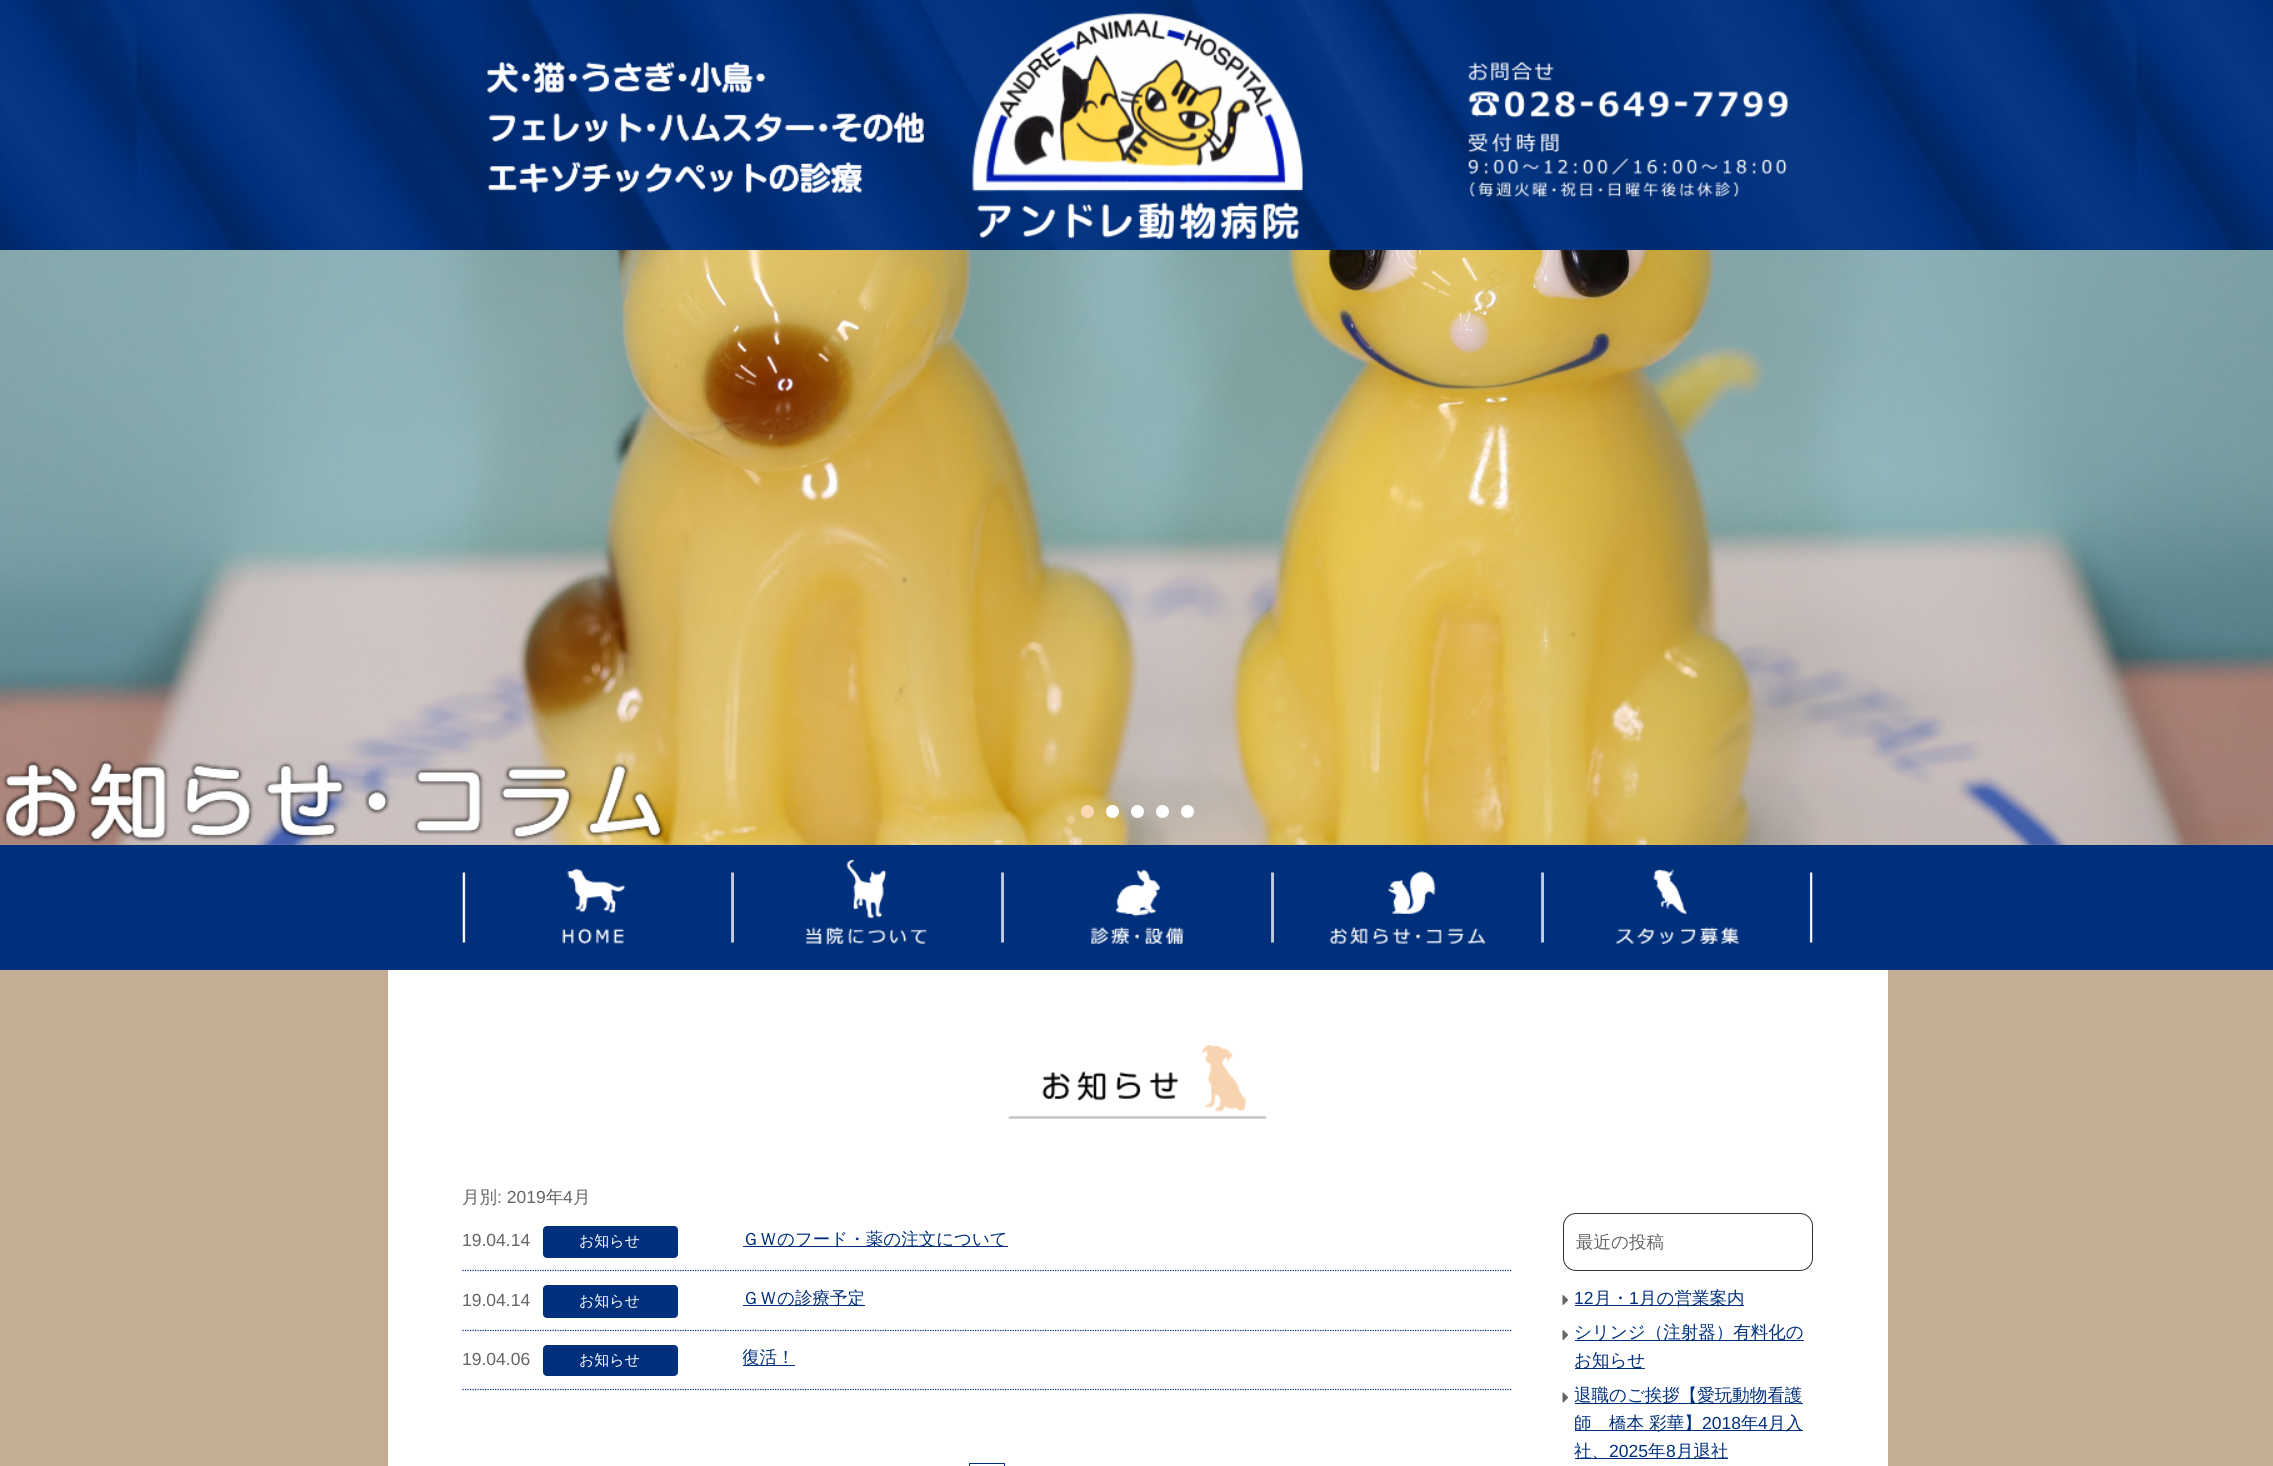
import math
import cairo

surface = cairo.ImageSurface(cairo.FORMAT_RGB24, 2273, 1466)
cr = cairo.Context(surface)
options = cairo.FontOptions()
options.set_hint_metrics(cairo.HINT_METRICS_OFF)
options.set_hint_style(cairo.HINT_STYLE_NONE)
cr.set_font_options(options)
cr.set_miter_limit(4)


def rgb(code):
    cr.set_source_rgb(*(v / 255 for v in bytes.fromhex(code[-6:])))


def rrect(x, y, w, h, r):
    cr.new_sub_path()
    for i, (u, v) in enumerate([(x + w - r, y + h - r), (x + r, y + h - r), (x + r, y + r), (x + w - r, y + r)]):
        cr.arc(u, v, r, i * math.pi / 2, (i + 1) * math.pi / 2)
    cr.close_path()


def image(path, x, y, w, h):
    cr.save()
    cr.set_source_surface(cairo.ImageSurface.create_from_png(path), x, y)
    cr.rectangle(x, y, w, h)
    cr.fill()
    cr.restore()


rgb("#c3ae95")
cr.paint()
image("img/1.png", 0, 0, 2273, 250)
image("img/2.png", 487, 62, 437, 131)
image("img/3.png", 972, 12, 331, 227)
image("img/4.png", 1468, 62, 320, 135)
image("img/5.png", 0, 250, 2273, 595)
rgb("#fbd8b3")
cr.arc(1087.5, 811.5, 6.5, 0, 2 * math.pi)
cr.fill()
rgb("#ffffff")
cr.arc(1112.5, 811.5, 6.5, 0, 2 * math.pi)
cr.fill()
cr.arc(1137.5, 811.5, 6.5, 0, 2 * math.pi)
cr.fill()
cr.arc(1162.5, 811.5, 6.5, 0, 2 * math.pi)
cr.fill()
cr.arc(1187.5, 811.5, 6.5, 0, 2 * math.pi)
cr.fill()
image("img/6.png", 1, 759, 664, 85)
rgb("#002f7b")
cr.rectangle(0, 845, 2273, 125)
cr.fill()
image("img/7.png", 462, 868, 271, 76)
image("img/8.png", 732, 859, 271, 87)
image("img/9.png", 1002, 869, 271, 75)
image("img/10.png", 1272, 871, 271, 73)
image("img/11.png", 1542, 868, 271, 76)
rgb("#ffffff")
cr.rectangle(388, 970, 1500, 496)
cr.fill()
image("img/12.png", 1008, 1045, 259, 74)
rgb("#002f7b")
rrect(543, 1226, 135, 32, 4)
cr.fill()
cr.new_path()
cr.move_to(462.5, 1270.5)
cr.line_to(1512.5, 1270.5)
cr.set_line_width(1.2)
cr.set_dash([1.25, 1.25])
cr.stroke()
cr.rectangle(743, 1246, 265, 1)
cr.fill()
rrect(543, 1285, 135, 33, 4)
cr.fill()
cr.new_path()
cr.move_to(462.5, 1330.5)
cr.line_to(1512.5, 1330.5)
cr.stroke()
cr.rectangle(743, 1305, 122, 1)
cr.fill()
rrect(543, 1345, 135, 31, 4)
cr.fill()
cr.new_path()
cr.move_to(462.5, 1389.5)
cr.line_to(1512.5, 1389.5)
cr.stroke()
cr.rectangle(743, 1365, 52, 1)
cr.fill()
cr.rectangle(969.5, 1463.5, 35, 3)
cr.set_line_width(1)
cr.set_dash([])
cr.stroke()
rrect(1563.5, 1213.5, 249, 57, 12.5)
rgb("#333333")
cr.stroke()
image("img/13.png", 1562, 1295, 6, 10)
rgb("#002f7b")
cr.rectangle(1575, 1305, 169, 1)
cr.fill()
image("img/13.png", 1562, 1330, 6, 10)
cr.rectangle(1575, 1340, 229, 1)
cr.fill()
cr.rectangle(1575, 1368, 70, 1)
cr.fill()
image("img/14.png", 1562, 1392, 7, 11)
for x, y, w, h, color in [
    (1575, 1403, 228, 1, "#002f7b"),
    (1575, 1430, 228, 1, "#002f7b"),
    (1575, 1458, 153, 1, "#002f7b"),
]:
    rgb(color)
    cr.rectangle(x, y, w, h)
    cr.fill()
cr.select_font_face("WenQuanYi Zen Hei Medium")
cr.set_font_size(17.5)
rgb("#646464")
cr.move_to(462, 1203)
cr.show_text("月別")
cr.select_font_face("Liberation Sans")
cr.move_to(497, 1203)
cr.show_text(": 2019")
cr.select_font_face("WenQuanYi Zen Hei Medium")
cr.move_to(546, 1203)
cr.show_text("年")
cr.select_font_face("Liberation Sans")
cr.move_to(563, 1203)
cr.show_text("4")
cr.select_font_face("WenQuanYi Zen Hei Medium")
cr.move_to(573, 1203)
cr.show_text("月")
cr.select_font_face("Liberation Sans")
cr.move_to(462, 1246)
cr.show_text("19.04.14")
cr.select_font_face("WenQuanYi Zen Hei Medium")
cr.set_font_size(15)
rgb("#ffffff")
cr.move_to(579, 1246)
cr.show_text("お知らせ")
cr.set_font_size(17.5)
rgb("#002f7b")
cr.move_to(742, 1245)
cr.show_text("ＧＷのフード・薬の注文について")
cr.select_font_face("Liberation Sans")
rgb("#646464")
cr.move_to(462, 1306)
cr.show_text("19.04.14")
cr.select_font_face("WenQuanYi Zen Hei Medium")
cr.set_font_size(15)
rgb("#ffffff")
cr.move_to(579, 1306)
cr.show_text("お知らせ")
cr.set_font_size(17.5)
rgb("#002f7b")
cr.move_to(742, 1304)
cr.show_text("ＧＷの診療予定")
cr.select_font_face("Liberation Sans")
rgb("#646464")
cr.move_to(462, 1365)
cr.show_text("19.04.06")
cr.select_font_face("WenQuanYi Zen Hei Medium")
cr.set_font_size(15)
rgb("#ffffff")
cr.move_to(579, 1365)
cr.show_text("お知らせ")
cr.save()
cr.rectangle(743, 1344, 770, 27)
cr.clip()
cr.set_font_size(17.5)
rgb("#002f7b")
cr.move_to(742, 1363)
cr.show_text("復活！")
cr.restore()
cr.set_font_size(17.5)
rgb("#646464")
cr.move_to(1576, 1248)
cr.show_text("最近の投稿")
cr.select_font_face("Liberation Sans")
rgb("#002f7b")
cr.move_to(1574, 1304)
cr.show_text("12")
cr.select_font_face("WenQuanYi Zen Hei Medium")
cr.move_to(1594, 1304)
cr.show_text("月・")
cr.select_font_face("Liberation Sans")
cr.move_to(1629, 1304)
cr.show_text("1")
cr.select_font_face("WenQuanYi Zen Hei Medium")
for x, y, s in [
    (1639, 1304, "月の営業案内"),
    (1574, 1338, "シリンジ（注射器）有料化の"),
    (1574, 1366, "お知らせ"),
    (1574, 1401, "退職のご挨拶【愛玩動物看護"),
    (1574, 1429, "師　橋本 彩華】"),
]:
    cr.move_to(x, y)
    cr.show_text(s)
cr.select_font_face("Liberation Sans")
cr.move_to(1702, 1429)
cr.show_text("2018")
cr.select_font_face("WenQuanYi Zen Hei Medium")
cr.move_to(1741, 1429)
cr.show_text("年")
cr.select_font_face("Liberation Sans")
cr.move_to(1758, 1429)
cr.show_text("4")
cr.select_font_face("WenQuanYi Zen Hei Medium")
cr.move_to(1768, 1429)
cr.show_text("月入")
cr.move_to(1574, 1457)
cr.show_text("社、")
cr.select_font_face("Liberation Sans")
cr.move_to(1609, 1457)
cr.show_text("2025")
cr.select_font_face("WenQuanYi Zen Hei Medium")
cr.move_to(1648, 1457)
cr.show_text("年")
cr.select_font_face("Liberation Sans")
cr.move_to(1666, 1457)
cr.show_text("8")
cr.select_font_face("WenQuanYi Zen Hei Medium")
cr.move_to(1676, 1457)
cr.show_text("月退社")
surface.write_to_png("page.png")
